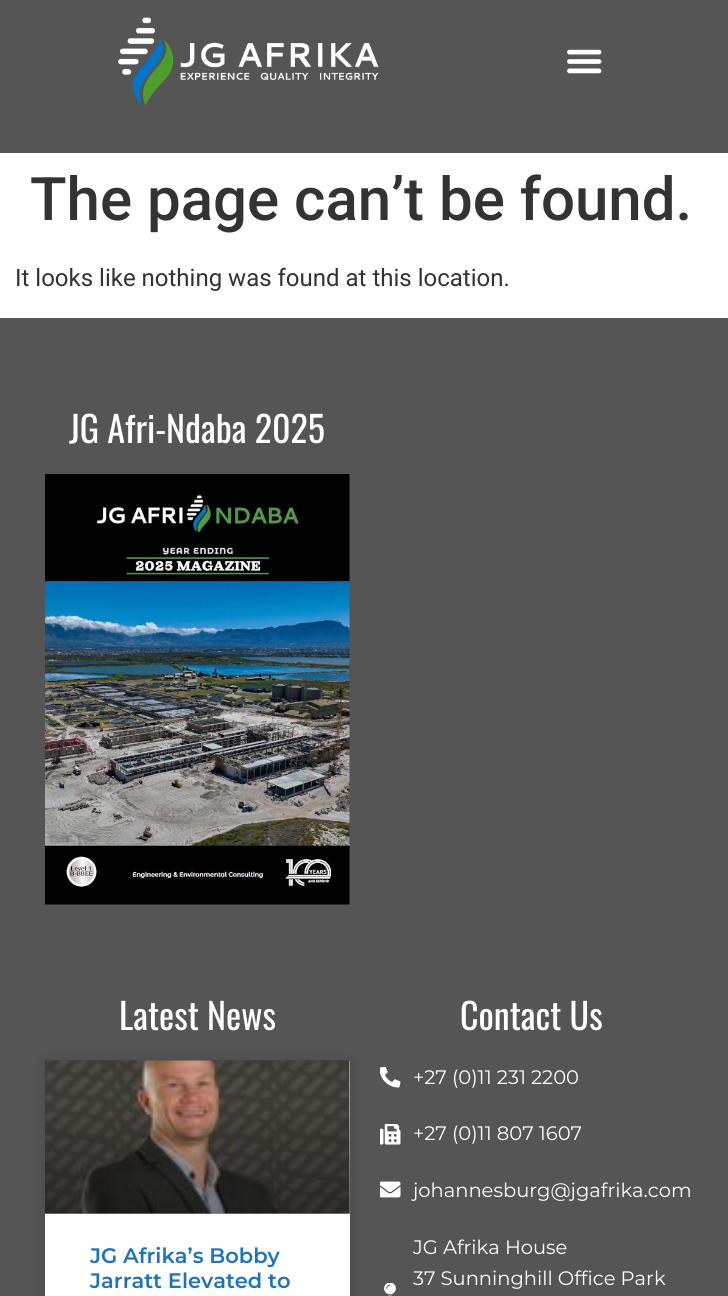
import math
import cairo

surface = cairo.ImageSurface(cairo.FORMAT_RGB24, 728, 1296)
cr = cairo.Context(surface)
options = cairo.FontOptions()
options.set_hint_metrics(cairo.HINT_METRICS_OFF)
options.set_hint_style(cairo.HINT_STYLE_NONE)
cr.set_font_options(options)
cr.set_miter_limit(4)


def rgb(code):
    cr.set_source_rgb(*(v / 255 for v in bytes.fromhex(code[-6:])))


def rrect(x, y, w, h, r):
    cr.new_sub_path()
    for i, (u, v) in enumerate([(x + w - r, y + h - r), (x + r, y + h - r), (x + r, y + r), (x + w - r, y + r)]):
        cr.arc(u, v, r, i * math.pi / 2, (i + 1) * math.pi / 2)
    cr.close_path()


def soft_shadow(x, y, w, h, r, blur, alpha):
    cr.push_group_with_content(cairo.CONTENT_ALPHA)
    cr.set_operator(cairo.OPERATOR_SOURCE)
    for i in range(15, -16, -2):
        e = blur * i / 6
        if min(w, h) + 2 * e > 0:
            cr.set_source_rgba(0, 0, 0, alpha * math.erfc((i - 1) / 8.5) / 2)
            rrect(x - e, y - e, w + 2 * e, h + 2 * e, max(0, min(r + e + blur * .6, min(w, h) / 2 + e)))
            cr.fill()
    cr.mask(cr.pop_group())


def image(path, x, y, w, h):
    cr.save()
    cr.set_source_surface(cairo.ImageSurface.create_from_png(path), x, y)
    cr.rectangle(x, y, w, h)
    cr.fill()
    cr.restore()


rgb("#ffffff")
cr.paint()
rgb("#555555")
cr.rectangle(0, 0, 728, 153)
cr.fill()
image("img/1.png", 118, 17, 261, 89)
image("img/2.png", 567, 49, 35, 25)
cr.rectangle(0, 318, 728, 978)
cr.fill()
image("img/3.png", 45, 474, 305, 431)
rgb("#000000")
soft_shadow(45, 1061, 305, 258, 0, 7.5, 0.15)
rgb("#ffffff")
cr.rectangle(45, 1061, 305, 235)
cr.fill()
image("img/4.png", 45, 1060, 305, 154)
gradient = cairo.LinearGradient(197, 1214, 197, 1061)
gradient.add_color_stop_rgba(0, 0, 0, 0, 0.35)
gradient.add_color_stop_rgba(0.75, 0, 0, 0, 0)
cr.set_source(gradient)
cr.rectangle(45, 1106, 305, 108)
cr.fill()
image("img/5.png", 380, 1067, 21, 21)
image("img/6.png", 380, 1124, 21, 21)
image("img/7.png", 380, 1181, 21, 17)
image("img/8.png", 384, 1283, 12, 13)
cr.select_font_face("Roboto Medium")
cr.set_font_size(60)
rgb("#333333")
cr.move_to(30, 220)
cr.show_text("The page can’t be found.")
cr.select_font_face("Roboto")
cr.set_font_size(24)
cr.move_to(15, 286)
cr.show_text("It looks like nothing was found at this location.")
cr.select_font_face("Oswald")
cr.set_font_size(36)
rgb("#ffffff")
cr.move_to(69, 443)
cr.show_text("JG Afri-Ndaba 2025")
cr.move_to(119, 1030)
cr.show_text("Latest News")
cr.select_font_face("Montserrat SemiBold")
cr.set_font_size(21)
rgb("#1e73be")
cr.move_to(90, 1263)
cr.show_text("JG Afrika’s Bobby")
cr.move_to(90, 1288)
cr.show_text("Jarratt Elevated to")
cr.select_font_face("Oswald")
cr.set_font_size(36)
rgb("#ffffff")
cr.move_to(460, 1030)
cr.show_text("Contact Us")
cr.select_font_face("Montserrat")
cr.set_font_size(19.5)
for x, y, s in [
    (413, 1084, "+27 (0)11 231 2200"),
    (413, 1140, "+27 (0)11 807 1607"),
    (413, 1197, "johannesburg@jgafrika.com"),
    (413, 1254, "JG Afrika House"),
    (413, 1285, "37 Sunninghill Office Park"),
]:
    cr.move_to(x, y)
    cr.show_text(s)
surface.write_to_png("page.png")
